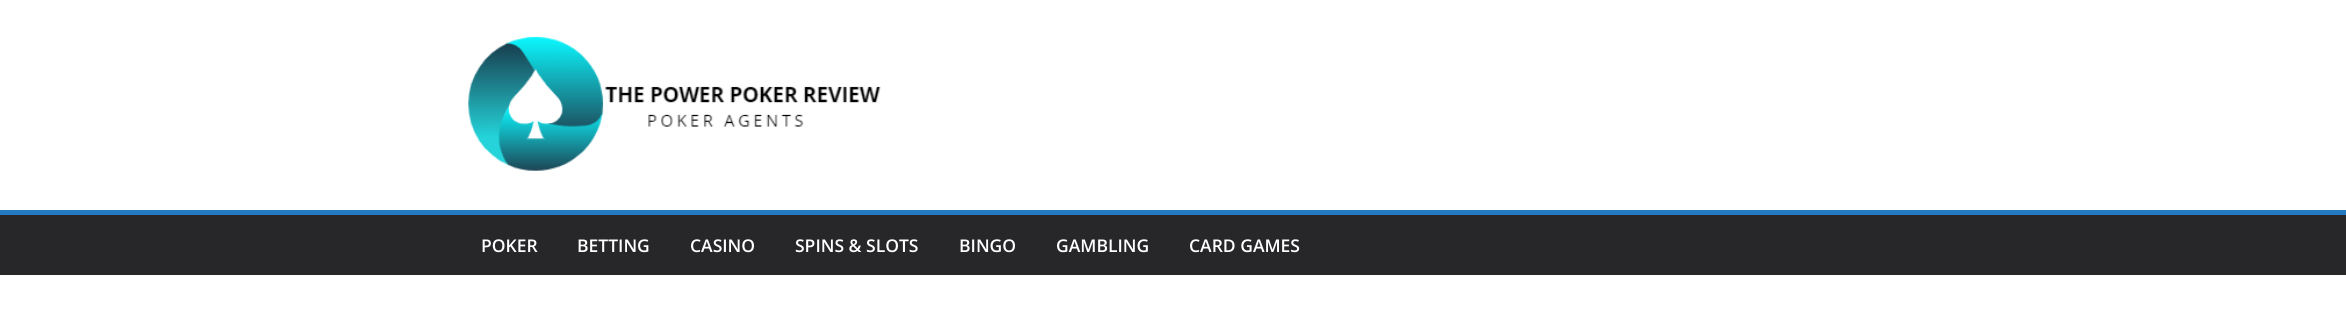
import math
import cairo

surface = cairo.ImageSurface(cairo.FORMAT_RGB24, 2346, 333)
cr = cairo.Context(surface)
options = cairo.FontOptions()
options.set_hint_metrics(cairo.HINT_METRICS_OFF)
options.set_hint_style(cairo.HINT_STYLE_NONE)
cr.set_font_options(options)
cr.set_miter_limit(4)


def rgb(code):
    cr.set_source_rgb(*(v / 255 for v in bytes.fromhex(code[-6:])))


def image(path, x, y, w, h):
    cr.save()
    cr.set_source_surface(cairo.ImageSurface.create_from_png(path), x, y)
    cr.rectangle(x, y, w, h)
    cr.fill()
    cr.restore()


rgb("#ffffff")
cr.paint()
image("img/1.png", 468, 36, 413, 135)
rgb("#27272a")
cr.rectangle(0, 215, 2346, 60)
cr.fill()
rgb("#257bc1")
cr.rectangle(0, 210, 2346, 5)
cr.fill()
cr.select_font_face("Open Sans SemiBold")
cr.set_font_size(17.5)
rgb("#ffffff")
for x, y, s in [
    (481, 252, "POKER"),
    (577, 252, "BETTING"),
    (690, 252, "CASINO"),
    (795, 252, "SPINS & SLOTS"),
    (959, 252, "BINGO"),
    (1056, 252, "GAMBLING"),
    (1189, 252, "CARD GAMES"),
]:
    cr.move_to(x, y)
    cr.show_text(s)
surface.write_to_png("page.png")
